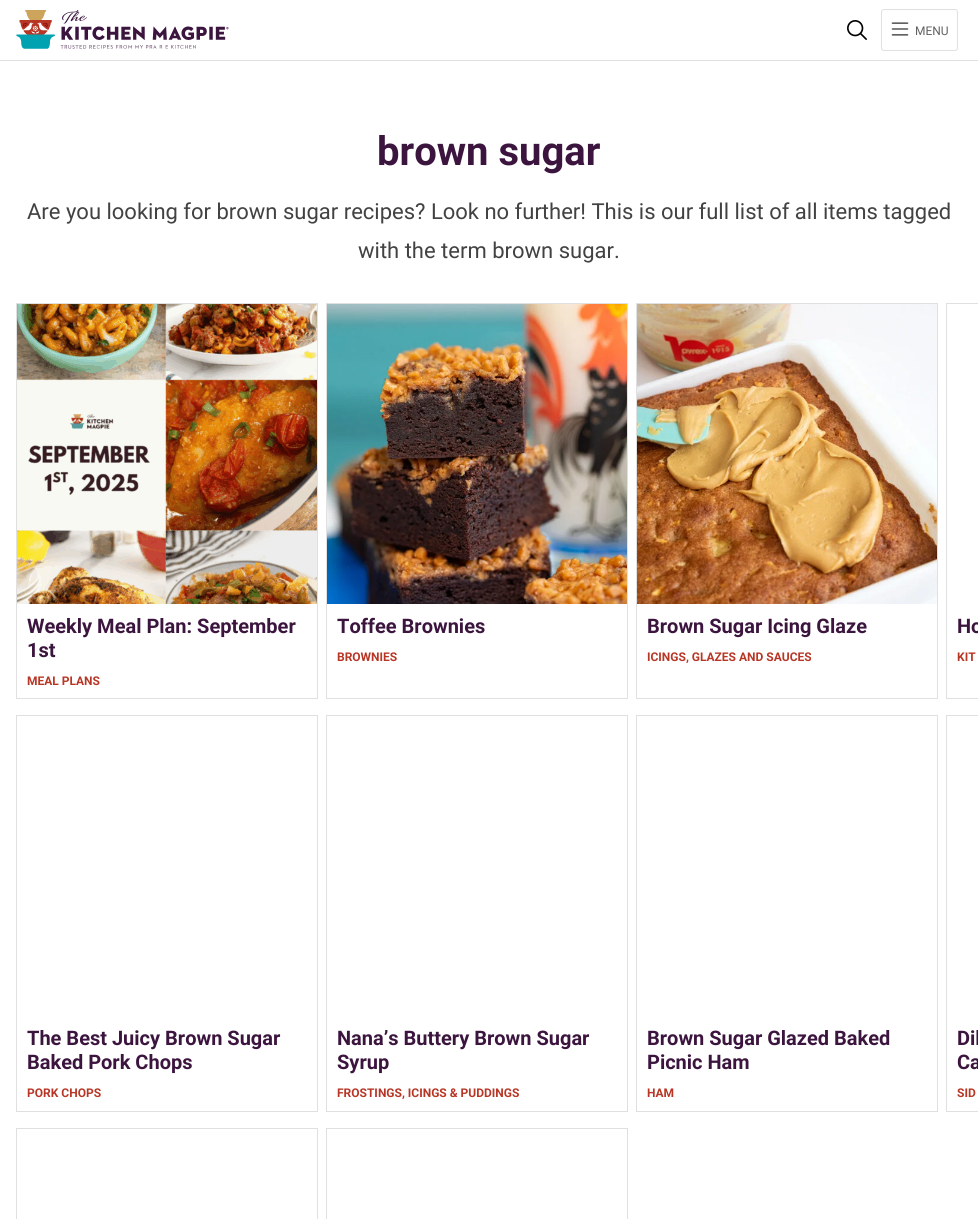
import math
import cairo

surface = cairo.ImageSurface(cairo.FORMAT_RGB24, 978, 1219)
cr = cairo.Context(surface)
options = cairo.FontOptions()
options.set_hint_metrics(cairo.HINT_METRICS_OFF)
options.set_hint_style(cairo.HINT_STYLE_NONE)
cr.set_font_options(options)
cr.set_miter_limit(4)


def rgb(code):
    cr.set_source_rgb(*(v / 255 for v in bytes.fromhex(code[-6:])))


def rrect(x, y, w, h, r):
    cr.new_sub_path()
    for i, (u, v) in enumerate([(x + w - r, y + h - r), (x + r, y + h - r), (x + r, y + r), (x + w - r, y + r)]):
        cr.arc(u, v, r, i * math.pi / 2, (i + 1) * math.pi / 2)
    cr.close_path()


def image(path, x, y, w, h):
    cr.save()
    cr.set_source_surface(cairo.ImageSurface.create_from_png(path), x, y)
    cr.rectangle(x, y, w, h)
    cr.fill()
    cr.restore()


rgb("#ffffff")
cr.paint()
rgb("#e0e0e0")
cr.rectangle(0, 60, 978, 1)
cr.fill()
image("img/1.png", 16, 10, 213, 39)
image("img/2.png", 847, 20, 20, 20)
rrect(881.5, 9.5, 76, 41, 2.5)
cr.set_line_width(1)
cr.stroke()
image("img/3.png", 891, 22, 18, 14)
cr.rectangle(16.5, 303.5, 301, 395)
cr.stroke()
image("img/4.png", 17, 304, 300, 300)
cr.rectangle(326.5, 303.5, 301, 395)
cr.stroke()
image("img/5.png", 327, 304, 300, 300)
cr.rectangle(636.5, 303.5, 301, 395)
cr.stroke()
image("img/6.png", 637, 304, 300, 300)
cr.rectangle(946.5, 303.5, 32, 395)
cr.stroke()
cr.rectangle(16.5, 715.5, 301, 396)
cr.stroke()
cr.rectangle(326.5, 715.5, 301, 396)
cr.stroke()
cr.rectangle(636.5, 715.5, 301, 396)
cr.stroke()
cr.rectangle(946.5, 715.5, 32, 396)
cr.stroke()
cr.rectangle(16.5, 1128.5, 301, 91)
cr.stroke()
cr.rectangle(326.5, 1128.5, 301, 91)
cr.stroke()
cr.select_font_face("Roboto")
cr.set_font_size(12)
rgb("#616161")
cr.move_to(915, 35)
cr.show_text("MENU")
cr.select_font_face("Roboto", cairo.FONT_SLANT_NORMAL, cairo.FONT_WEIGHT_BOLD)
cr.set_font_size(40)
rgb("#3c153f")
cr.move_to(377, 165)
cr.show_text("brown sugar")
cr.select_font_face("Roboto")
cr.set_font_size(22)
rgb("#424242")
cr.move_to(27, 219)
cr.show_text("Are you looking for brown sugar recipes? Look no further! This is our full list of all items tagged")
cr.move_to(358, 258)
cr.show_text("with the term brown sugar.")
cr.select_font_face("Roboto", cairo.FONT_SLANT_NORMAL, cairo.FONT_WEIGHT_BOLD)
cr.set_font_size(20)
rgb("#3c153f")
cr.move_to(27, 633)
cr.show_text("Weekly Meal Plan: September")
cr.move_to(27, 657)
cr.show_text("1st")
cr.set_font_size(12)
rgb("#b73625")
cr.move_to(27, 685)
cr.show_text("MEAL PLANS")
cr.set_font_size(20)
rgb("#3c153f")
cr.move_to(337, 633)
cr.show_text("Toffee Brownies")
cr.set_font_size(12)
rgb("#b73625")
cr.move_to(337, 661)
cr.show_text("BROWNIES")
cr.set_font_size(20)
rgb("#3c153f")
cr.move_to(647, 633)
cr.show_text("Brown Sugar Icing Glaze")
cr.set_font_size(12)
rgb("#b73625")
cr.move_to(647, 661)
cr.show_text("ICINGS, GLAZES AND SAUCES")
cr.set_font_size(20)
rgb("#3c153f")
cr.move_to(957, 633)
cr.show_text("Ho")
cr.set_font_size(12)
rgb("#b73625")
cr.move_to(957, 661)
cr.show_text("KIT")
cr.set_font_size(20)
rgb("#3c153f")
cr.move_to(27, 1045)
cr.show_text("The Best Juicy Brown Sugar")
cr.move_to(27, 1069)
cr.show_text("Baked Pork Chops")
cr.set_font_size(12)
rgb("#b73625")
cr.move_to(27, 1097)
cr.show_text("PORK CHOPS")
cr.set_font_size(20)
rgb("#3c153f")
cr.move_to(337, 1045)
cr.show_text("Nana’s Buttery Brown Sugar")
cr.move_to(337, 1069)
cr.show_text("Syrup")
cr.set_font_size(12)
rgb("#b73625")
cr.move_to(337, 1097)
cr.show_text("FROSTINGS, ICINGS & PUDDINGS")
cr.set_font_size(20)
rgb("#3c153f")
cr.move_to(647, 1045)
cr.show_text("Brown Sugar Glazed Baked")
cr.move_to(647, 1069)
cr.show_text("Picnic Ham")
cr.set_font_size(12)
rgb("#b73625")
cr.move_to(647, 1097)
cr.show_text("HAM")
cr.set_font_size(20)
rgb("#3c153f")
cr.move_to(957, 1045)
cr.show_text("Dil")
cr.move_to(957, 1069)
cr.show_text("Ca")
cr.set_font_size(12)
rgb("#b73625")
cr.move_to(957, 1097)
cr.show_text("SID")
surface.write_to_png("page.png")
